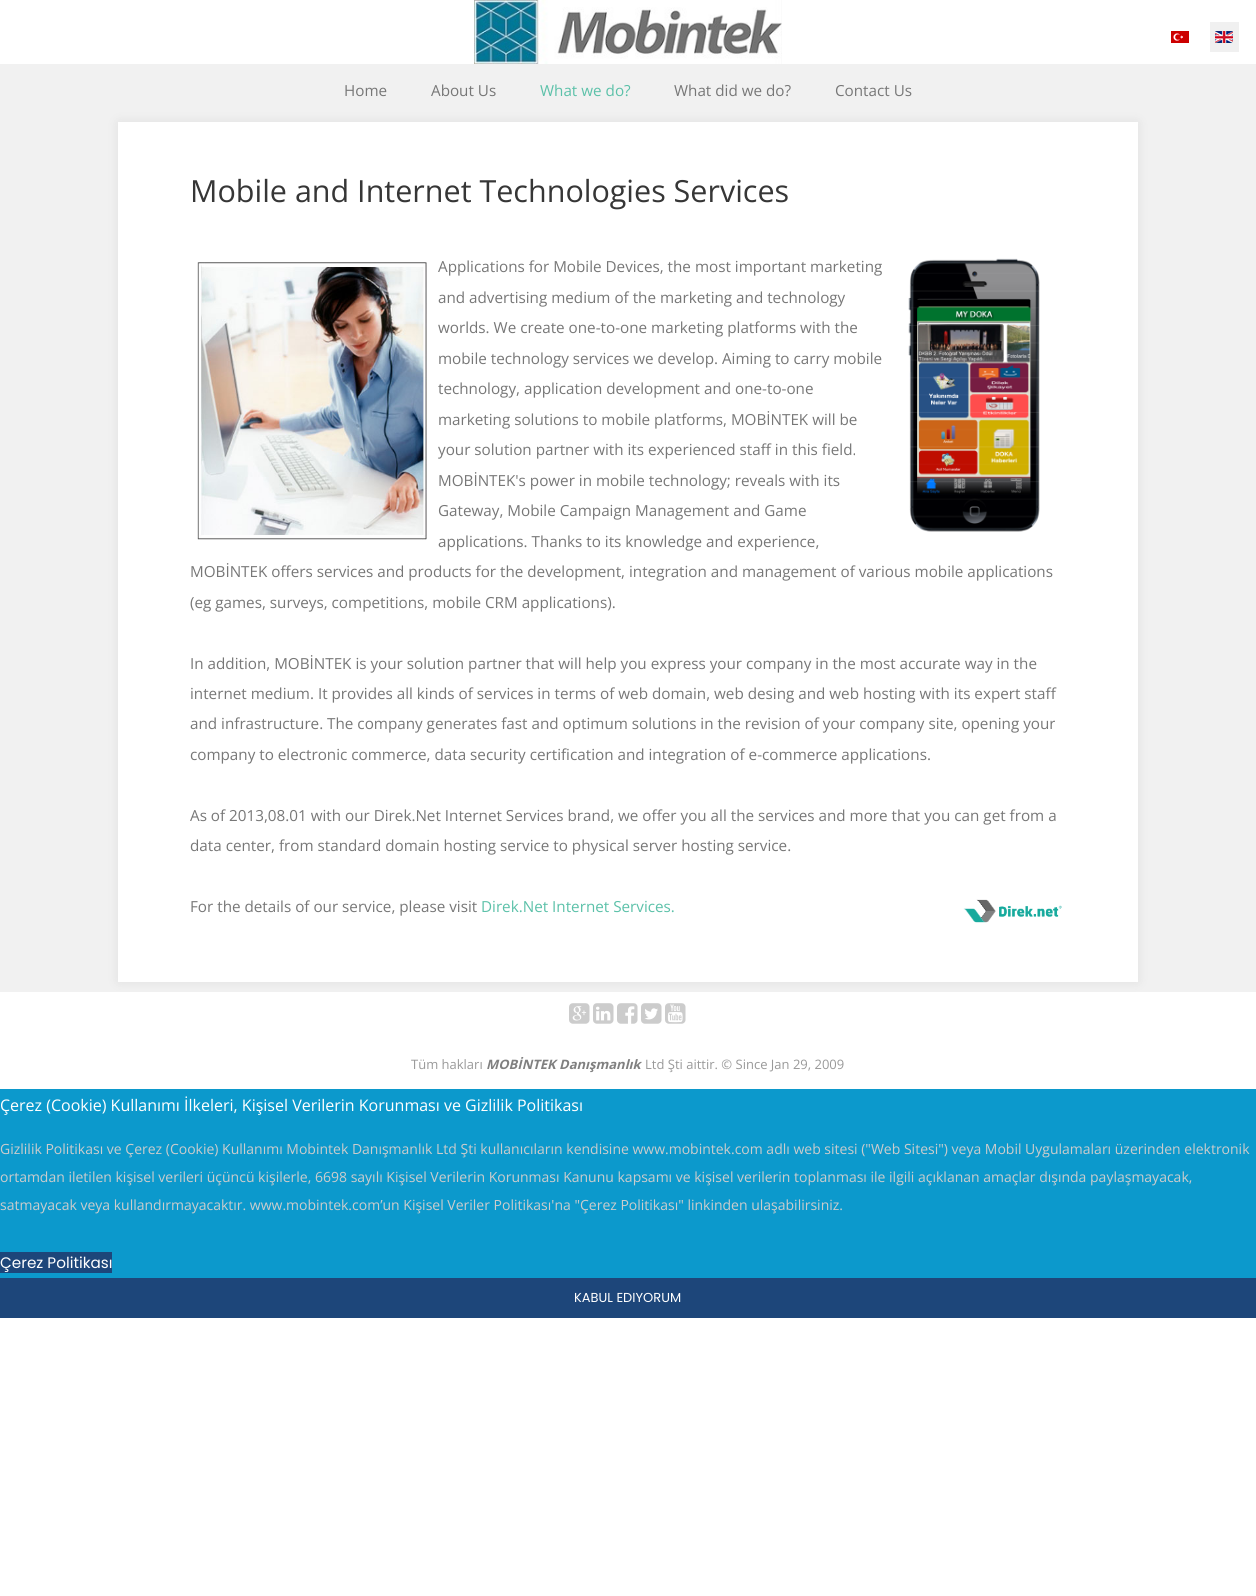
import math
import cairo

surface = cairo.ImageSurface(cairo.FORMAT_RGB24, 1256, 1596)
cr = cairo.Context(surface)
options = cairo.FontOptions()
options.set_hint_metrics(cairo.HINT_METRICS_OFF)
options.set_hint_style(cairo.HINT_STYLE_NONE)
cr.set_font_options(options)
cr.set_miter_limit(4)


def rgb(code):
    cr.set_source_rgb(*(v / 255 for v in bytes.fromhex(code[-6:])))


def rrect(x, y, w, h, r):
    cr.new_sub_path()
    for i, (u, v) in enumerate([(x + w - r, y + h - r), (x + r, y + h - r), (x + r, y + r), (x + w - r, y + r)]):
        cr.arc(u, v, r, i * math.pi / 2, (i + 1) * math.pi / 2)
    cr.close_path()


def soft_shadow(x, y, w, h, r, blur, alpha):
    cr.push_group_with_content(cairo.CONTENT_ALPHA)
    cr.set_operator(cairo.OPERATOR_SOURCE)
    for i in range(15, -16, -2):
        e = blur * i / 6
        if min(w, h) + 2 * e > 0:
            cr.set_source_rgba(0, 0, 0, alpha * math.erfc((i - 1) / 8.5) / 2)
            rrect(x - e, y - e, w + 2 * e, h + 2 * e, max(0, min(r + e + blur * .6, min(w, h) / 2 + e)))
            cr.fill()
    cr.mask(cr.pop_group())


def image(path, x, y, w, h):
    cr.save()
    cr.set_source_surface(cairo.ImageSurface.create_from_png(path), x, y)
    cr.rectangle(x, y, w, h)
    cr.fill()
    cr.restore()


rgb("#ffffff")
cr.paint()
image("img/1.png", 474, 0, 308, 64)
image("img/2.png", 1171, 31, 18, 12)
rgb("#f0f0f0")
cr.rectangle(1210, 22, 29, 30)
cr.fill()
image("img/3.png", 1215, 31, 18, 12)
rgb("#f1f1f1")
cr.rectangle(0, 64, 1256, 928)
cr.fill()
rgb("#000000")
soft_shadow(118, 122, 1020, 860, 0, 6.5, 0.07)
rgb("#ffffff")
cr.rectangle(118, 122, 1020, 860)
cr.fill()
image("img/4.png", 197, 262, 230, 278)
image("img/5.png", 908, 258, 132, 274)
image("img/6.png", 963, 899, 99, 24)
image("img/7.png", 569, 1003, 21, 21)
image("img/8.png", 593, 1003, 21, 21)
image("img/9.png", 617, 1003, 21, 21)
image("img/10.png", 641, 1003, 21, 21)
image("img/11.png", 665, 1003, 21, 21)
for x, y, w, h, color in [
    (0, 1089, 1256, 189, "#0c99cc"),
    (0, 1252, 112, 21, "#1d467a"),
    (0, 1278, 1256, 40, "#1d467a"),
]:
    rgb(color)
    cr.rectangle(x, y, w, h)
    cr.fill()
cr.select_font_face("Open Sans")
cr.set_font_size(15.23)
rgb("#777777")
cr.move_to(344, 96)
cr.show_text("Home")
cr.move_to(431, 96)
cr.show_text("About Us")
rgb("#5cc1a9")
cr.move_to(540, 96)
cr.show_text("What we do?")
rgb("#777777")
cr.move_to(674, 96)
cr.show_text("What did we do?")
cr.move_to(835, 96)
cr.show_text("Contact Us")
cr.set_font_size(30.5)
rgb("#363636")
cr.move_to(190, 202)
cr.show_text("Mobile and Internet Technologies Services")
cr.set_font_size(15.23)
rgb("#777777")
for x, y, s in [
    (438, 272, "Applications for Mobile Devices, the most important marketing"),
    (438, 303, "and advertising medium of the marketing and technology"),
    (438, 333, "worlds. We create one-to-one marketing platforms with the"),
    (438, 364, "mobile technology services we develop. Aiming to carry mobile"),
    (438, 394, "technology, application development and one-to-one"),
    (438, 425, "marketing solutions to mobile platforms, MOBİNTEK will be"),
    (438, 455, "your solution partner with its experienced staff in this field."),
    (438, 486, "MOBİNTEK's power in mobile technology; reveals with its"),
    (438, 516, "Gateway, Mobile Campaign Management and Game"),
    (438, 547, "applications. Thanks to its knowledge and experience,"),
    (190, 577, "MOBİNTEK offers services and products for the development, integration and management of various mobile applications"),
    (190, 608, "(eg games, surveys, competitions, mobile CRM applications)."),
    (190, 669, "In addition, MOBİNTEK is your solution partner that will help you express your company in the most accurate way in the"),
    (190, 699, "internet medium. It provides all kinds of services in terms of web domain, web desing and web hosting with its expert staff"),
    (190, 729, "and infrastructure. The company generates fast and optimum solutions in the revision of your company site, opening your"),
    (190, 760, "company to electronic commerce, data security certification and integration of e-commerce applications."),
    (190, 821, "As of 2013,08.01 with our Direk.Net Internet Services brand, we offer you all the services and more that you can get from a"),
    (190, 851, "data center, from standard domain hosting service to physical server hosting service."),
    (190, 912, "For the details of our service, please visit"),
]:
    cr.move_to(x, y)
    cr.show_text(s)
rgb("#5cc1a9")
cr.move_to(481, 912)
cr.show_text("Direk.Net Internet Services.")
cr.set_font_size(13)
rgb("#999999")
cr.move_to(411, 1069)
cr.show_text("Tüm hakları")
cr.select_font_face("Open Sans", cairo.FONT_SLANT_ITALIC, cairo.FONT_WEIGHT_BOLD)
rgb("#808080")
cr.move_to(486, 1069)
cr.show_text("MOBİNTEK Danışmanlık")
cr.select_font_face("Open Sans")
rgb("#999999")
cr.move_to(645, 1069)
cr.show_text("Ltd Şti aittir. © Since Jan 29, 2009")
cr.set_font_size(16)
rgb("#ffffff")
cr.move_to(0, 1111)
cr.show_text("Çerez (Cookie) Kullanımı İlkeleri, Kişisel Verilerin Korunması ve Gizlilik Politikası")
cr.set_font_size(14)
rgb("#cccccc")
for x, y, s in [
    (0, 1154, "Gizlilik Politikası ve Çerez (Cookie) Kullanımı Mobintek Danışmanlık Ltd Şti kullanıcıların kendisine www.mobintek.com adlı web sitesi (\"Web Sitesi\") veya Mobil Uygulamaları üzerinden elektronik"),
    (0, 1182, "ortamdan iletilen kişisel verileri üçüncü kişilerle, 6698 sayılı Kişisel Verilerin Korunması Kanunu kapsamı ve kişisel verilerin toplanması ile ilgili açıklanan amaçlar dışında paylaşmayacak,"),
    (0, 1210, "satmayacak veya kullandırmayacaktır. www.mobintek.com’un Kişisel Veriler Politikası'na \"Çerez Politikası\" linkinden ulaşabilirsiniz."),
]:
    cr.move_to(x, y)
    cr.show_text(s)
cr.select_font_face("Poppins")
cr.set_font_size(15.23)
rgb("#ffffff")
cr.move_to(0, 1268)
cr.show_text("Çerez Politikası")
cr.set_font_size(13)
cr.move_to(574, 1302)
cr.show_text("KABUL EDIYORUM")
surface.write_to_png("page.png")
